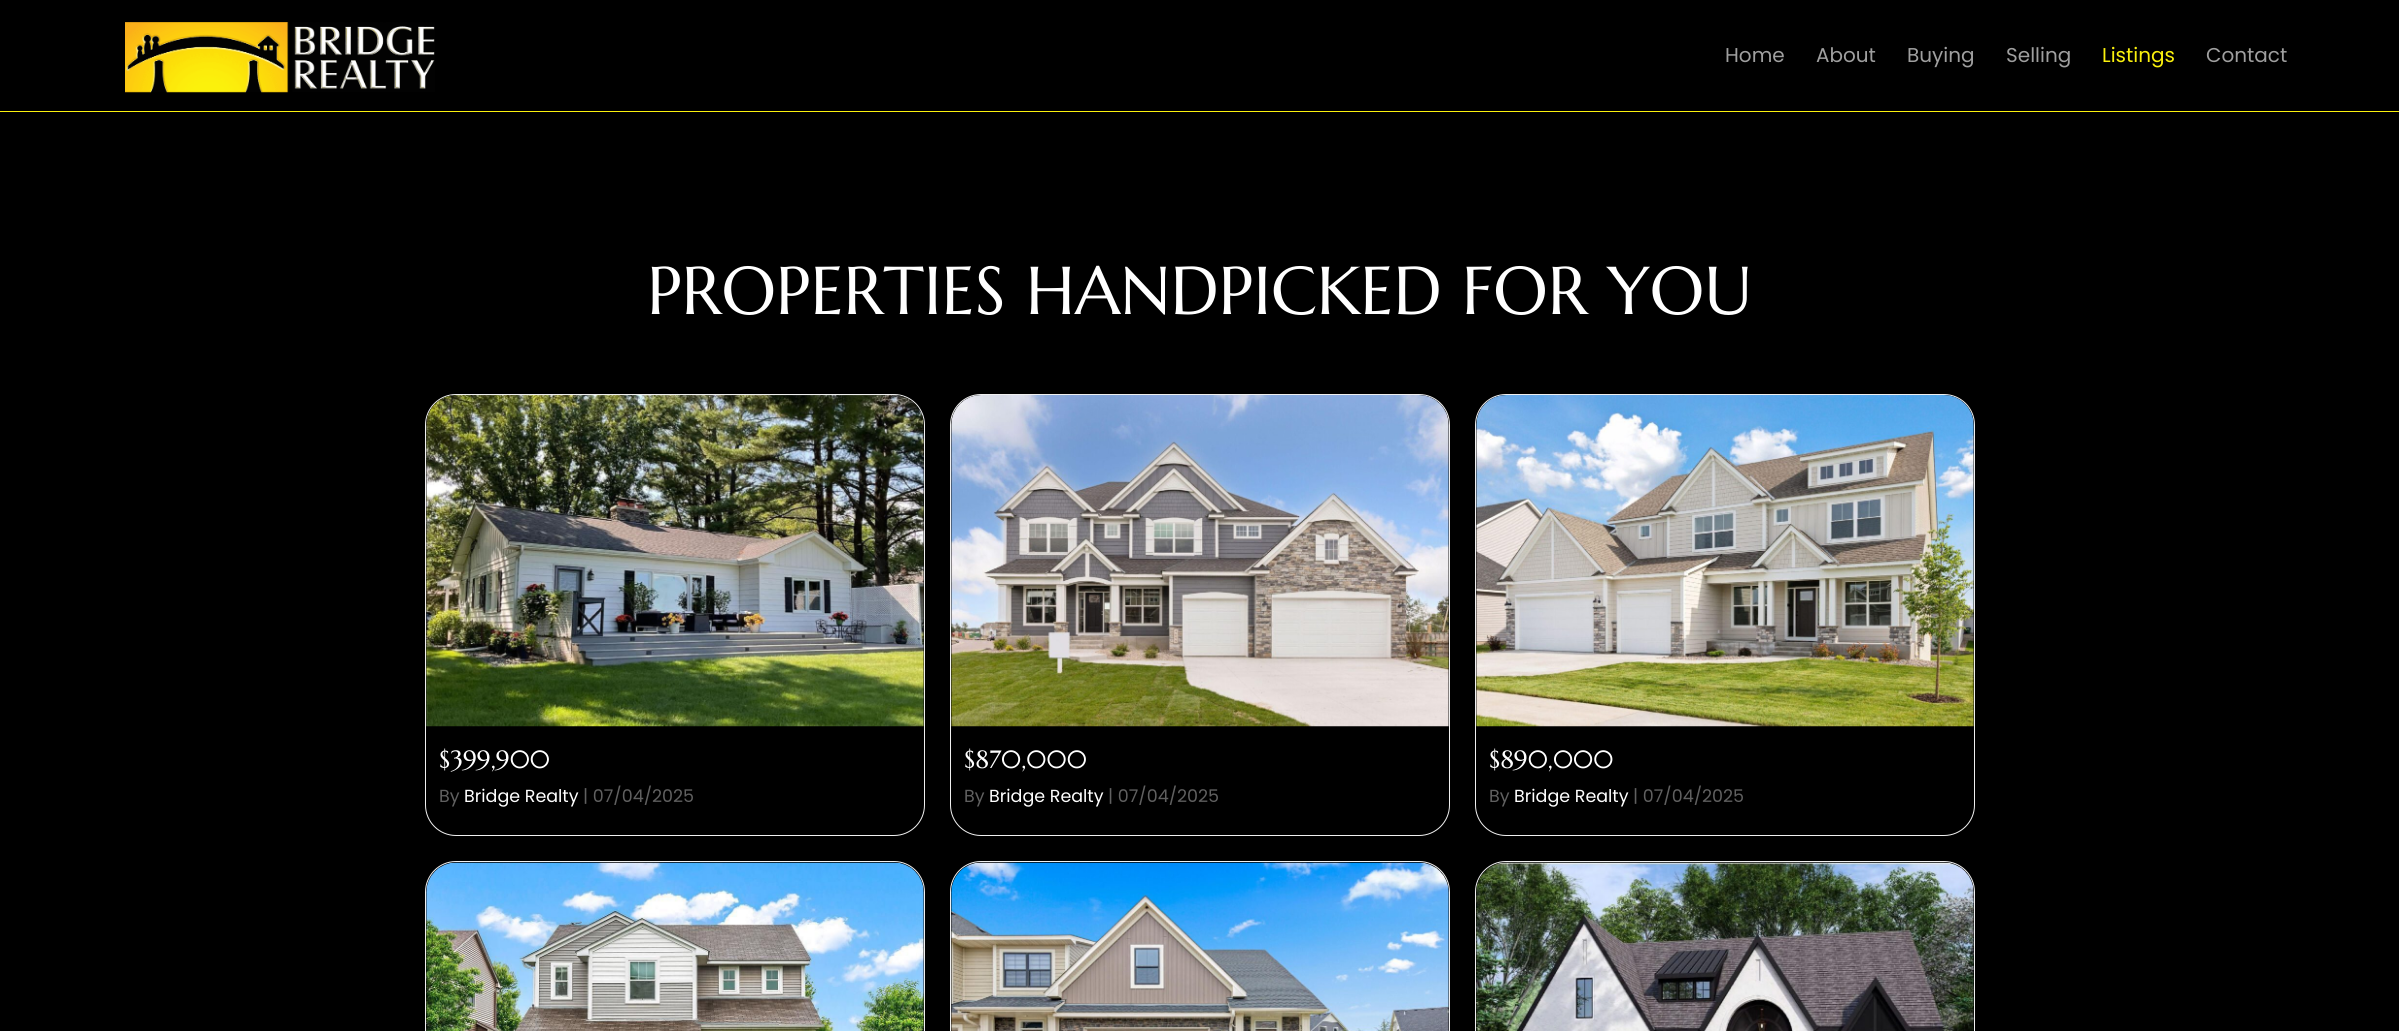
import math
import cairo

surface = cairo.ImageSurface(cairo.FORMAT_RGB24, 2399, 1031)
cr = cairo.Context(surface)
options = cairo.FontOptions()
options.set_hint_metrics(cairo.HINT_METRICS_OFF)
options.set_hint_style(cairo.HINT_STYLE_NONE)
cr.set_font_options(options)
cr.set_miter_limit(4)


def rgb(code):
    cr.set_source_rgb(*(v / 255 for v in bytes.fromhex(code[-6:])))


def rrect(x, y, w, h, r):
    cr.new_sub_path()
    for i, (u, v) in enumerate([(x + w - r, y + h - r), (x + r, y + h - r), (x + r, y + r), (x + w - r, y + r)]):
        cr.arc(u, v, r, i * math.pi / 2, (i + 1) * math.pi / 2)
    cr.close_path()


def image(path, x, y, w, h):
    cr.save()
    cr.set_source_surface(cairo.ImageSurface.create_from_png(path), x, y)
    cr.rectangle(x, y, w, h)
    cr.fill()
    cr.restore()


rgb("#000000")
cr.paint()
rgb("#fbf10d")
cr.rectangle(0, 111, 2399, 1)
cr.fill()
image("img/1.png", 125, 22, 310, 71)
rrect(425.5, 394.5, 499, 441, 30.5)
rgb("#f0f0f0")
cr.set_line_width(1)
cr.stroke()
image("img/2.png", 426, 395, 498, 332)
rrect(950.5, 394.5, 499, 441, 30.5)
cr.stroke()
image("img/3.png", 951, 395, 498, 332)
rrect(1475.5, 394.5, 499, 441, 30.5)
cr.stroke()
image("img/4.png", 1476, 395, 498, 332)
rrect(425.5, 861.5, 499, 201, 30.5)
cr.stroke()
image("img/5.png", 426, 862, 498, 169)
rrect(950.5, 861.5, 499, 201, 30.5)
cr.stroke()
image("img/6.png", 951, 862, 498, 169)
rrect(1475.5, 861.5, 499, 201, 30.5)
cr.stroke()
image("img/7.png", 1476, 862, 498, 169)
cr.select_font_face("Poppins")
cr.set_font_size(20)
rgb("#9f9f9f")
for x, y, s in [
    (1725, 62, "Home"),
    (1816, 62, "About"),
    (1907, 62, "Buying"),
    (2006, 62, "Selling"),
]:
    cr.move_to(x, y)
    cr.show_text(s)
rgb("#fbf10d")
cr.move_to(2102, 62)
cr.show_text("Listings")
rgb("#9f9f9f")
cr.move_to(2206, 62)
cr.show_text("Contact")
cr.select_font_face("Marcellus")
cr.set_font_size(67.5)
rgb("#ffffff")
cr.move_to(647, 314)
cr.show_text("PROPERTIES HANDPICKED FOR YOU")
cr.set_font_size(25)
cr.move_to(439, 768)
cr.show_text("$399,900")
cr.select_font_face("Poppins")
cr.set_font_size(17.5)
rgb("#606060")
cr.move_to(439, 802)
cr.show_text("By")
rgb("#ffffff")
cr.move_to(464, 802)
cr.show_text("Bridge Realty")
rgb("#606060")
cr.move_to(583, 802)
cr.show_text("| 07/04/2025")
cr.select_font_face("Marcellus")
cr.set_font_size(25)
rgb("#ffffff")
cr.move_to(964, 768)
cr.show_text("$870,000")
cr.select_font_face("Poppins")
cr.set_font_size(17.5)
rgb("#606060")
cr.move_to(964, 802)
cr.show_text("By")
rgb("#ffffff")
cr.move_to(989, 802)
cr.show_text("Bridge Realty")
rgb("#606060")
cr.move_to(1108, 802)
cr.show_text("| 07/04/2025")
cr.select_font_face("Marcellus")
cr.set_font_size(25)
rgb("#ffffff")
cr.move_to(1489, 768)
cr.show_text("$890,000")
cr.select_font_face("Poppins")
cr.set_font_size(17.5)
rgb("#606060")
cr.move_to(1489, 802)
cr.show_text("By")
rgb("#ffffff")
cr.move_to(1514, 802)
cr.show_text("Bridge Realty")
rgb("#606060")
cr.move_to(1633, 802)
cr.show_text("| 07/04/2025")
surface.write_to_png("page.png")
